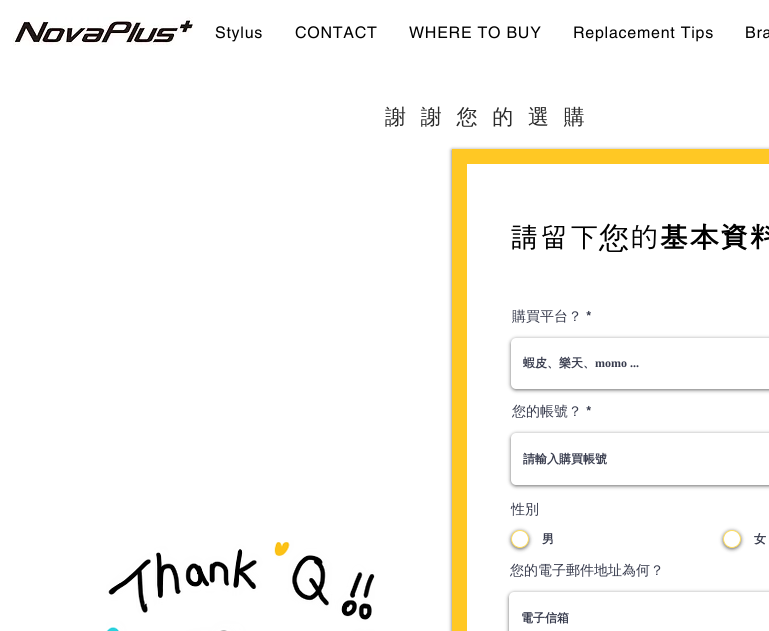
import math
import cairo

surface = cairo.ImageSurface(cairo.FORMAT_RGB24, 769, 631)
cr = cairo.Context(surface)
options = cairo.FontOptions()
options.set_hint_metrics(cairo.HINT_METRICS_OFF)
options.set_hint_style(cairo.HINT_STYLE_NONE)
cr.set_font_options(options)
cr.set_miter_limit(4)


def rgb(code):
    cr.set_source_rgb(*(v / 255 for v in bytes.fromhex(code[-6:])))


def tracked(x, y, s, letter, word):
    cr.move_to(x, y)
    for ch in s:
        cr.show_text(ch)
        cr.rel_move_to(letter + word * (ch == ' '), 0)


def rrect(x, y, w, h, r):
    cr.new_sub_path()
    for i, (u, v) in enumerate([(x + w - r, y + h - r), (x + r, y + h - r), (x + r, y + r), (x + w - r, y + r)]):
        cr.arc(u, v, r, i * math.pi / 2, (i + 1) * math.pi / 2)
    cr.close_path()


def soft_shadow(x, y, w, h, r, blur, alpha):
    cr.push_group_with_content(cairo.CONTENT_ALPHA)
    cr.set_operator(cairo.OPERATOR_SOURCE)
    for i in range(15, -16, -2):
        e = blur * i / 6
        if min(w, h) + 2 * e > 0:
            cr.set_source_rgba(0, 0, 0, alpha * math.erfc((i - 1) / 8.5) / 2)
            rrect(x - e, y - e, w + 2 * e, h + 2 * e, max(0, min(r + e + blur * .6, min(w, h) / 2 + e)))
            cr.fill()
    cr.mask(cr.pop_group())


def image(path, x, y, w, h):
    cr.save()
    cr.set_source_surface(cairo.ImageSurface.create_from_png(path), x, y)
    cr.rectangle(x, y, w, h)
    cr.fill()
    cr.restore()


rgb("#ffffff")
cr.paint()
image("img/1.png", 13, 17, 180, 29)
image("img/2.png", 106, 540, 269, 91)
cr.save()
cr.set_fill_rule(cairo.FILL_RULE_EVEN_ODD)
cr.new_path()
cr.move_to(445, 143)
cr.line_to(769, 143)
cr.line_to(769, 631)
cr.line_to(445, 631)
cr.close_path()
cr.move_to(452, 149)
cr.line_to(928, 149)
cr.line_to(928, 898)
cr.line_to(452, 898)
cr.close_path()
cr.clip()
rgb("#000000")
soft_shadow(452, 150, 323, 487, 0, 2, 0.6)
cr.restore()
cr.rectangle(459.5, 156.5, 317, 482)
rgb("#ffc824")
cr.set_line_width(15)
cr.stroke()
rgb("#000000")
soft_shadow(511, 339, 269, 51, 5, 2, 0.6)
rgb("#ffffff")
rrect(511, 338, 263, 51, 5)
cr.fill()
rgb("#000000")
soft_shadow(511, 434, 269, 52, 5, 2, 0.6)
rgb("#ffffff")
rrect(511, 433, 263, 52, 5)
cr.fill()
rgb("#000000")
soft_shadow(511, 531, 18, 18, 9, 2, 0.6)
rgb("#ffffff")
cr.arc(520, 539, 8.5, 0, 2 * math.pi)
cr.fill_preserve()
rgb("#ffde5f")
cr.set_line_width(1)
cr.stroke()
rgb("#000000")
soft_shadow(723, 531, 18, 18, 9, 2, 0.6)
rgb("#ffffff")
cr.arc(732, 539, 8.5, 0, 2 * math.pi)
cr.fill_preserve()
rgb("#ffde5f")
cr.stroke()
rgb("#000000")
soft_shadow(509, 593, 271, 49, 5, 2, 0.6)
rgb("#ffffff")
rrect(509, 592, 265, 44, 5)
cr.fill()
cr.select_font_face("helvetica")
cr.set_font_size(16)
rgb("#000000")
for x, y, s in [
    (215, 38, "Stylus"),
    (295, 38, "CONTACT"),
    (409, 38, "WHERE TO BUY"),
    (573, 38, "Replacement Tips"),
    (745, 38, "Bra"),
]:
    tracked(x, y, s, 0.75, 0)
cr.select_font_face("WenQuanYi Zen Hei Medium")
cr.set_font_size(21)
rgb("#2a2a2a")
tracked(385, 124, "謝謝您的選購", 14.75, 0)
cr.select_font_face("Dotum")
cr.set_font_size(30)
rgb("#000000")
cr.move_to(509, 248)
cr.show_text("請留下")
cr.select_font_face("WenQuanYi Zen Hei Medium")
cr.move_to(599, 248)
cr.show_text("您")
cr.select_font_face("Dotum")
cr.move_to(629, 248)
cr.show_text("的")
cr.select_font_face("Dotum", cairo.FONT_SLANT_NORMAL, cairo.FONT_WEIGHT_BOLD)
cr.move_to(659, 248)
cr.show_text("基本資料")
cr.select_font_face("WenQuanYi Zen Hei Medium")
cr.set_font_size(14)
rgb("#373b4d")
cr.move_to(512, 321)
cr.show_text("購買平台？")
cr.select_font_face("helvetica", cairo.FONT_SLANT_NORMAL, cairo.FONT_WEIGHT_BOLD)
cr.move_to(586, 321)
cr.show_text("*")
cr.select_font_face("WenQuanYi Zen Hei", cairo.FONT_SLANT_NORMAL, cairo.FONT_WEIGHT_BOLD)
cr.set_font_size(12)
cr.move_to(523, 367)
cr.show_text("蝦皮、樂天、")
cr.select_font_face("Liberation Serif", cairo.FONT_SLANT_NORMAL, cairo.FONT_WEIGHT_BOLD)
cr.move_to(595, 367)
cr.show_text("momo ...")
cr.select_font_face("WenQuanYi Zen Hei Medium")
cr.set_font_size(14)
cr.move_to(512, 416)
cr.show_text("您的帳號？")
cr.select_font_face("helvetica", cairo.FONT_SLANT_NORMAL, cairo.FONT_WEIGHT_BOLD)
cr.move_to(586, 416)
cr.show_text("*")
cr.select_font_face("WenQuanYi Zen Hei", cairo.FONT_SLANT_NORMAL, cairo.FONT_WEIGHT_BOLD)
cr.set_font_size(12)
cr.move_to(523, 463)
cr.show_text("請輸入購買帳號")
cr.select_font_face("WenQuanYi Zen Hei Medium")
cr.set_font_size(14)
cr.move_to(511, 514)
cr.show_text("性別")
cr.select_font_face("WenQuanYi Zen Hei", cairo.FONT_SLANT_NORMAL, cairo.FONT_WEIGHT_BOLD)
cr.set_font_size(12)
cr.move_to(542, 543)
cr.show_text("男")
cr.move_to(754, 543)
cr.show_text("女")
cr.select_font_face("WenQuanYi Zen Hei Medium")
cr.set_font_size(14)
cr.move_to(510, 575)
cr.show_text("您的電子郵件地址為何？")
cr.select_font_face("WenQuanYi Zen Hei", cairo.FONT_SLANT_NORMAL, cairo.FONT_WEIGHT_BOLD)
cr.set_font_size(12)
cr.move_to(521, 622)
cr.show_text("電子信箱")
surface.write_to_png("page.png")
